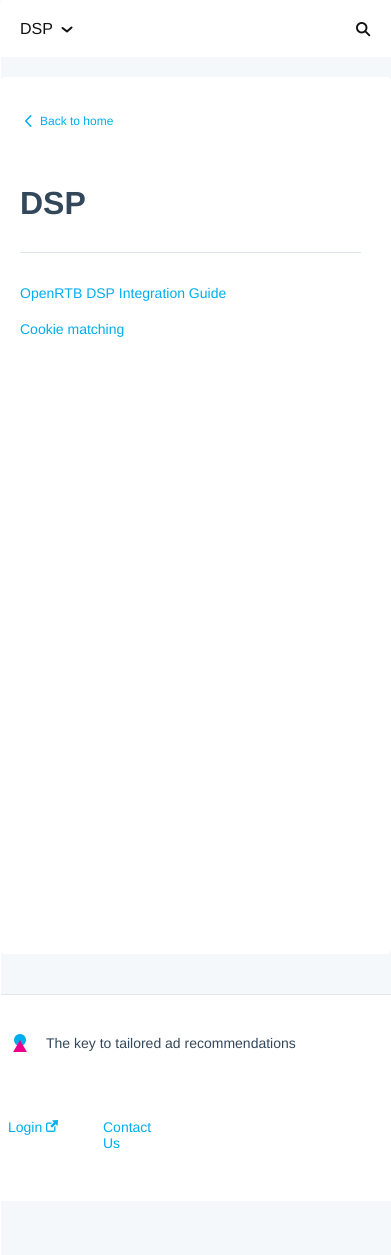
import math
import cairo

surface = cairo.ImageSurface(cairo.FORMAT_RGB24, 391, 1255)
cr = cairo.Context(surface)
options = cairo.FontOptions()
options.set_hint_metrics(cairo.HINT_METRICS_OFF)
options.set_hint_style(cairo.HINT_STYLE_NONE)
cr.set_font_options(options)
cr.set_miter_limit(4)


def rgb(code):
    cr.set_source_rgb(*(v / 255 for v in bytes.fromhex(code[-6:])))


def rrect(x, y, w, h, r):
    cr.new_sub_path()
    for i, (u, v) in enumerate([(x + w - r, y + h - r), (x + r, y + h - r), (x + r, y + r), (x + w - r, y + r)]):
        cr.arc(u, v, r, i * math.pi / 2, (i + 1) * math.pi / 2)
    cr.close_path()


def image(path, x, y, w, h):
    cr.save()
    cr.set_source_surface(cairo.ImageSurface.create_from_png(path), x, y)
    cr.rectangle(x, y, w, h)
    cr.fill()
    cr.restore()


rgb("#f5f8fa")
cr.paint()
rgb("#ffffff")
rrect(0, 77, 391, 877, 5)
cr.fill()
for x, y, w, h, color in [
    (0, 994, 391, 1, "#e6e6e6"),
    (0, 57, 1, 1198, "#ffffff"),
    (0, 0, 391, 57, "#ffffff"),
    (0, 1, 1, 1, "#eaf0f6"),
]:
    rgb(color)
    cr.rectangle(x, y, w, h)
    cr.fill()
cr.new_path()
cr.move_to(71.5, 27.5)
cr.line_to(67, 31.5)
cr.line_to(62.5, 28)
rgb("#111111")
cr.set_line_cap(cairo.LINE_CAP_ROUND)
cr.set_line_join(cairo.LINE_JOIN_ROUND)
cr.stroke()
image("img/1.png", 356, 22, 15, 15)
image("img/2.png", 25, 115, 7, 12)
rgb("#dfe3eb")
cr.rectangle(20, 252, 341, 1)
cr.fill()
rgb("#ffffff")
cr.rectangle(1, 995, 390, 206)
cr.fill()
image("img/3.png", 13, 1034, 14, 18)
image("img/4.png", 46, 1120, 12, 12)
cr.select_font_face("Liberation Sans")
cr.set_font_size(16)
rgb("#111111")
cr.move_to(20, 34)
cr.show_text("DSP")
cr.set_font_size(12)
rgb("#00adef")
cr.move_to(40, 125)
cr.show_text("Back to home")
cr.select_font_face("Liberation Sans", cairo.FONT_SLANT_NORMAL, cairo.FONT_WEIGHT_BOLD)
cr.set_font_size(32)
rgb("#33475b")
cr.move_to(20, 214)
cr.show_text("DSP")
cr.select_font_face("Liberation Sans")
cr.set_font_size(14)
rgb("#00adef")
cr.move_to(20, 298)
cr.show_text("OpenRTB DSP Integration Guide")
cr.move_to(20, 334)
cr.show_text("Cookie matching")
rgb("#33475b")
cr.move_to(46, 1048)
cr.show_text("The key to tailored ad recommendations")
rgb("#00adef")
for x, y, s in [
    (8, 1132, "Login"),
    (103, 1132, "Contact"),
    (103, 1148, "Us"),
]:
    cr.move_to(x, y)
    cr.show_text(s)
surface.write_to_png("page.png")
